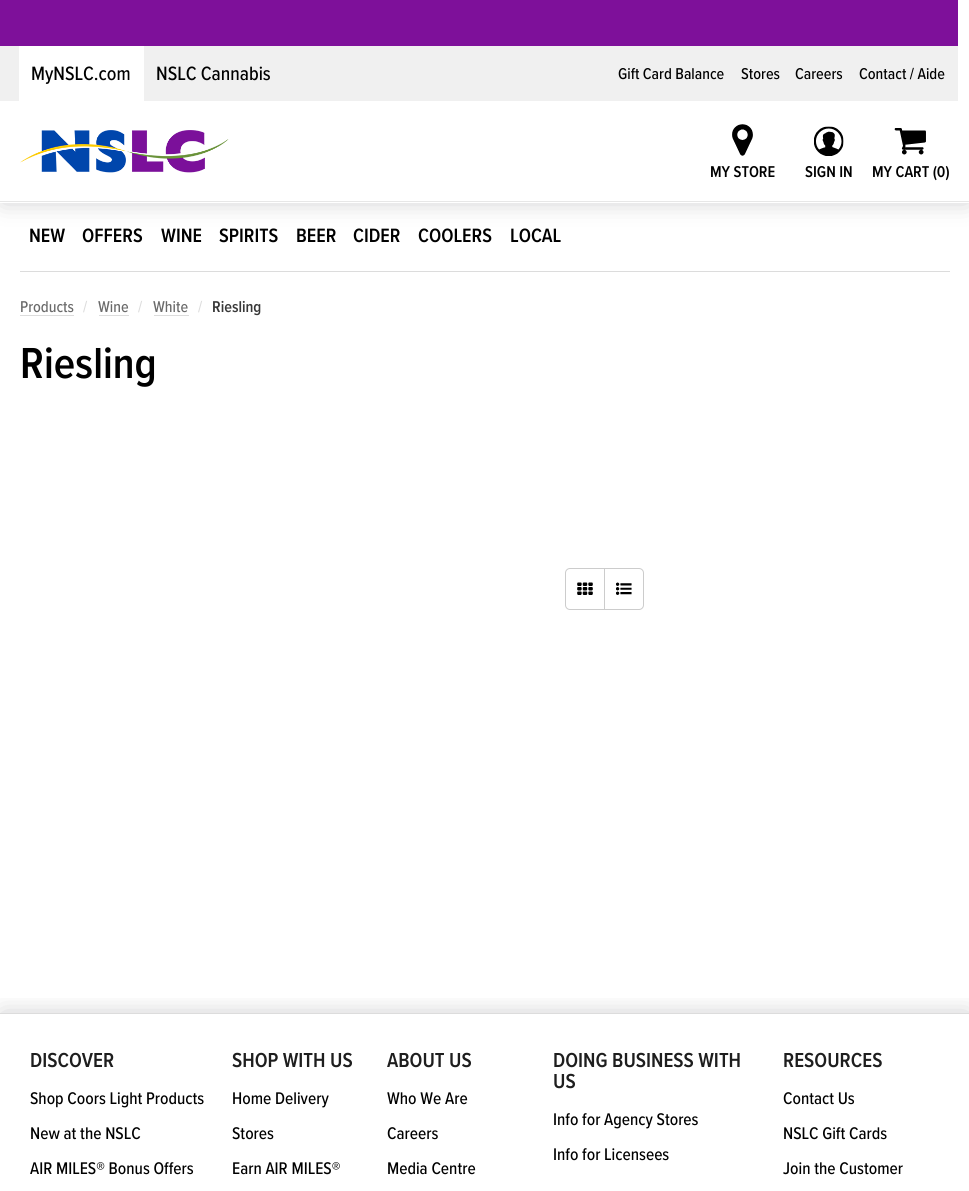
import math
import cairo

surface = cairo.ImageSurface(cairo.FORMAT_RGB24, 969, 1191)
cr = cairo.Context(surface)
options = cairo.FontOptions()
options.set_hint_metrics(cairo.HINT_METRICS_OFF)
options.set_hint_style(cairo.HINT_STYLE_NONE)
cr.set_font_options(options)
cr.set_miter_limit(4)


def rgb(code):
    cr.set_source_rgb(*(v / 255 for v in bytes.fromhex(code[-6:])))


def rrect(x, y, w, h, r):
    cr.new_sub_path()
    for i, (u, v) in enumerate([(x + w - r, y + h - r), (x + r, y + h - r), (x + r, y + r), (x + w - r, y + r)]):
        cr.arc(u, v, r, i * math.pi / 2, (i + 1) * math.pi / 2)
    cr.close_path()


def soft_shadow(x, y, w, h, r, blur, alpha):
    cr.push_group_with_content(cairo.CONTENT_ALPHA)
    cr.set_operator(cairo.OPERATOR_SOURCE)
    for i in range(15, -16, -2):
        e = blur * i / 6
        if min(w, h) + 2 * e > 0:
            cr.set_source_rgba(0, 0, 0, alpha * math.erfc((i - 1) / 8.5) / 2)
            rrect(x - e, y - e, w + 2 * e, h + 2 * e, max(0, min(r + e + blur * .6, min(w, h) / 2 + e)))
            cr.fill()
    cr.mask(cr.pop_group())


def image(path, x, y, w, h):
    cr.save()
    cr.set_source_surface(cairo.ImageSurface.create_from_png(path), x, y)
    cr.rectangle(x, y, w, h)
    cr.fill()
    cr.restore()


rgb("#ffffff")
cr.paint()
rgb("#060108")
soft_shadow(3, 3, 965, 197, 0, 12.5, 0.23)
for x, y, w, h, color in [
    (0, 0, 969, 203, "#ffffff"),
    (0, 201, 969, 1, "#e7e7e7"),
    (0, 0, 958, 46, "#7e109a"),
    (0, 46, 958, 55, "#f0f0f0"),
    (19, 46, 125, 55, "#ffffff"),
]:
    rgb(color)
    cr.rectangle(x, y, w, h)
    cr.fill()
image("img/1.png", 20, 130, 209, 43)
image("img/2.png", 732, 124, 21, 32)
image("img/3.png", 814, 126, 30, 30)
image("img/4.png", 894, 128, 32, 27)
for x, y, w, h, color in [
    (20, 271, 930, 1, "#dcdcdc"),
    (20, 315, 54, 1, "#dcdcdc"),
    (99, 315, 30, 1, "#dcdcdc"),
    (154, 315, 35, 1, "#dcdcdc"),
]:
    rgb(color)
    cr.rectangle(x, y, w, h)
    cr.fill()
cr.new_path()
cr.move_to(570, 568.5)
cr.line_to(604.5, 568.5)
cr.line_to(604.5, 609.5)
cr.line_to(570, 609.5)
cr.curve_to(567.5, 609.5, 565.5, 607.5, 565.5, 605)
cr.line_to(565.5, 573)
cr.curve_to(565.5, 570.5, 567.5, 568.5, 570, 568.5)
cr.close_path()
rgb("#cccccc")
cr.set_line_width(1)
cr.stroke()
image("img/5.png", 577, 582, 16, 13)
rgb("#ffffff")
cr.new_path()
cr.move_to(604.5, 568.5)
cr.line_to(639, 568.5)
cr.curve_to(641.5, 568.5, 643.5, 570.5, 643.5, 573)
cr.line_to(643.5, 605)
cr.curve_to(643.5, 607.5, 641.5, 609.5, 639, 609.5)
cr.line_to(604.5, 609.5)
cr.close_path()
cr.fill_preserve()
rgb("#cccccc")
cr.stroke()
image("img/6.png", 616, 582, 16, 13)
cr.save()
cr.rectangle(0, 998, 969, 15)
cr.clip()
rgb("#060108")
soft_shadow(3, 1015, 965, 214, 0, 12.5, 0.23)
cr.restore()
rgb("#dcdcdc")
cr.rectangle(0, 1013, 969, 1)
cr.fill()
cr.select_font_face("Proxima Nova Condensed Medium")
cr.set_font_size(20)
rgb("#000000")
cr.move_to(31, 80)
cr.show_text("MyNSLC.com")
cr.move_to(156, 80)
cr.show_text("NSLC Cannabis")
cr.set_font_size(16.25)
for x, y, s in [
    (618, 79, "Gift Card Balance"),
    (741, 79, "Stores"),
    (795, 79, "Careers"),
    (859, 79, "Contact / Aide"),
]:
    cr.move_to(x, y)
    cr.show_text(s)
cr.select_font_face("Proxima Nova Condensed SemiBold")
for x, y, s in [
    (710, 177, "MY STORE"),
    (805, 177, "SIGN IN"),
    (872, 177, "MY CART (0)"),
]:
    cr.move_to(x, y)
    cr.show_text(s)
cr.set_font_size(20)
for x, y, s in [
    (29, 242, "NEW"),
    (82, 242, "OFFERS"),
    (161, 242, "WINE"),
    (219, 242, "SPIRITS"),
    (296, 242, "BEER"),
    (353, 242, "CIDER"),
    (418, 242, "COOLERS"),
    (510, 242, "LOCAL"),
]:
    cr.move_to(x, y)
    cr.show_text(s)
cr.select_font_face("Proxima Nova Condensed Medium")
cr.set_font_size(16.25)
rgb("#6a6a6a")
cr.move_to(20, 312)
cr.show_text("Products")
rgb("#dcdcdc")
cr.move_to(83, 312)
cr.show_text("/")
rgb("#6a6a6a")
cr.move_to(98, 312)
cr.show_text("Wine")
rgb("#dcdcdc")
cr.move_to(138, 312)
cr.show_text("/")
rgb("#6a6a6a")
cr.move_to(153, 312)
cr.show_text("White")
rgb("#dcdcdc")
cr.move_to(198, 312)
cr.show_text("/")
cr.select_font_face("Proxima Nova Condensed SemiBold")
rgb("#383838")
cr.move_to(212, 312)
cr.show_text("Riesling")
cr.set_font_size(45)
rgb("#000000")
cr.move_to(20, 378)
cr.show_text("Riesling")
cr.set_font_size(21)
rgb("#1e1e1e")
cr.move_to(30, 1067)
cr.show_text("DISCOVER")
cr.select_font_face("Proxima Nova Condensed Medium")
cr.set_font_size(17.5)
rgb("#000000")
for x, y, s in [
    (30, 1104, "Shop Coors Light Products"),
    (30, 1139, "New at the NSLC"),
    (30, 1174, "AIR MILES® Bonus Offers"),
]:
    cr.move_to(x, y)
    cr.show_text(s)
cr.select_font_face("Proxima Nova Condensed SemiBold")
cr.set_font_size(21)
rgb("#1e1e1e")
cr.move_to(232, 1067)
cr.show_text("SHOP WITH US")
cr.select_font_face("Proxima Nova Condensed Medium")
cr.set_font_size(17.5)
rgb("#000000")
for x, y, s in [
    (232, 1104, "Home Delivery"),
    (232, 1139, "Stores"),
    (232, 1174, "Earn AIR MILES®"),
]:
    cr.move_to(x, y)
    cr.show_text(s)
cr.select_font_face("Proxima Nova Condensed SemiBold")
cr.set_font_size(21)
rgb("#1e1e1e")
cr.move_to(387, 1067)
cr.show_text("ABOUT US")
cr.select_font_face("Proxima Nova Condensed Medium")
cr.set_font_size(17.5)
rgb("#000000")
for x, y, s in [
    (387, 1104, "Who We Are"),
    (387, 1139, "Careers"),
    (387, 1174, "Media Centre"),
]:
    cr.move_to(x, y)
    cr.show_text(s)
cr.select_font_face("Proxima Nova Condensed SemiBold")
cr.set_font_size(21)
rgb("#1e1e1e")
cr.move_to(553, 1067)
cr.show_text("DOING BUSINESS WITH")
cr.move_to(553, 1088)
cr.show_text("US")
cr.select_font_face("Proxima Nova Condensed Medium")
cr.set_font_size(17.5)
rgb("#000000")
cr.move_to(553, 1125)
cr.show_text("Info for Agency Stores")
cr.move_to(553, 1160)
cr.show_text("Info for Licensees")
cr.select_font_face("Proxima Nova Condensed SemiBold")
cr.set_font_size(21)
rgb("#1e1e1e")
cr.move_to(783, 1067)
cr.show_text("RESOURCES")
cr.select_font_face("Proxima Nova Condensed Medium")
cr.set_font_size(17.5)
rgb("#000000")
for x, y, s in [
    (783, 1104, "Contact Us"),
    (783, 1139, "NSLC Gift Cards"),
    (783, 1174, "Join the Customer"),
]:
    cr.move_to(x, y)
    cr.show_text(s)
surface.write_to_png("page.png")
